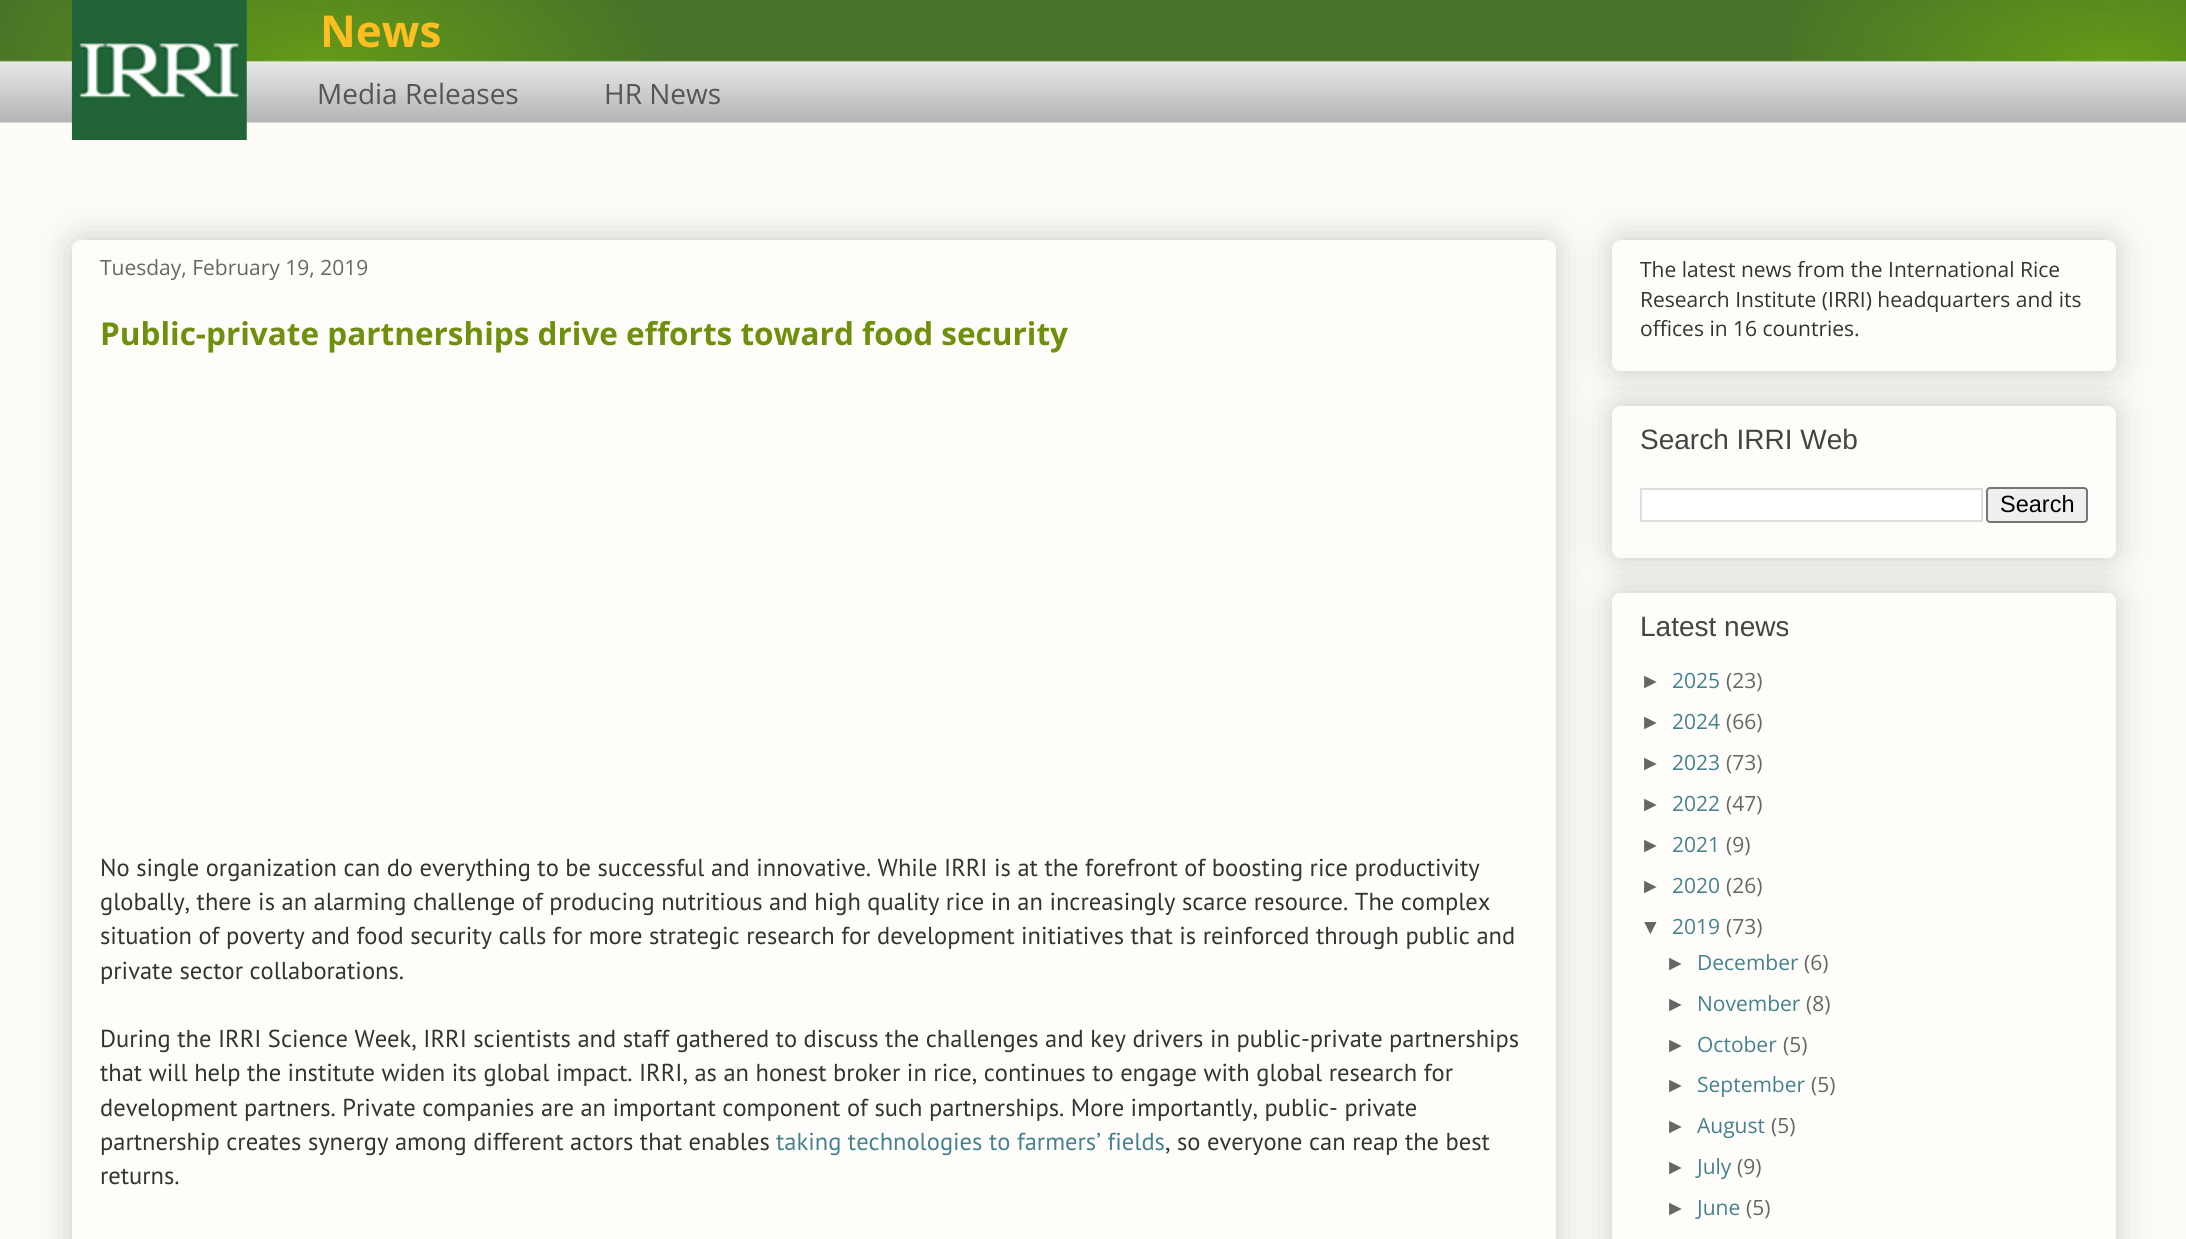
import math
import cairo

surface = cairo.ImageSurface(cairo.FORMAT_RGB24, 2186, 1239)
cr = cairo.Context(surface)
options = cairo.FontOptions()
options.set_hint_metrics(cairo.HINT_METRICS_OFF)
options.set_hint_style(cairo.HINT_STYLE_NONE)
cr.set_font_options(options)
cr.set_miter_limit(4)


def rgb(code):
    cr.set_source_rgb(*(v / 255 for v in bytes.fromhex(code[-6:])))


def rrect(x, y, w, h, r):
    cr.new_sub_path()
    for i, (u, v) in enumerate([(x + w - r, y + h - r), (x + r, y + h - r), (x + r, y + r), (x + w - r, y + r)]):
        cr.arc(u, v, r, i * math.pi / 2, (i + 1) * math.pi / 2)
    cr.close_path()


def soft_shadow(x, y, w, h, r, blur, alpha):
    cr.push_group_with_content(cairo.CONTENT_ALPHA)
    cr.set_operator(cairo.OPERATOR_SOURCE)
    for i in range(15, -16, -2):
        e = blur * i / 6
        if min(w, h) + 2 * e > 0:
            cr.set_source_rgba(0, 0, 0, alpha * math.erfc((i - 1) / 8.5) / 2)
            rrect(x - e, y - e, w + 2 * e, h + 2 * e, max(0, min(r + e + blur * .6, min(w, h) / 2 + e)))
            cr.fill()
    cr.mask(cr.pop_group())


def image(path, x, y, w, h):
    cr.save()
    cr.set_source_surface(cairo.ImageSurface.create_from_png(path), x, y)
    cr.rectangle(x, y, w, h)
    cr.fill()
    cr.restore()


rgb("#fcfbf5")
cr.paint()
rgb("#fffffe")
cr.rectangle(0, 122, 2186, 1)
cr.fill()
image("img/1.png", 0, 0, 2186, 123)
image("img/2.png", 71, 0, 176, 140)
rgb("#000000")
soft_shadow(72, 240, 1484, 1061, 9, 17.5, 0.2)
rgb("#fefdfa")
rrect(72, 240, 1484, 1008, 9)
cr.fill()
rgb("#000000")
soft_shadow(1612, 240, 504, 131, 9, 17.5, 0.2)
rgb("#fefdfa")
rrect(1612, 240, 504, 131, 9)
cr.fill()
rgb("#000000")
soft_shadow(1612, 406, 504, 152, 9, 17.5, 0.2)
rgb("#fefdfa")
rrect(1612, 406, 504, 152, 9)
cr.fill()
rgb("#ffffff")
cr.rectangle(1641, 489, 341, 32)
cr.fill_preserve()
rgb("#dddddd")
cr.stroke()
rgb("#efefef")
rrect(1987, 488, 100, 34, 3)
cr.fill_preserve()
rgb("#767676")
cr.stroke()
rgb("#000000")
soft_shadow(1612, 593, 504, 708, 9, 17.5, 0.2)
rgb("#fefdfa")
rrect(1612, 593, 504, 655, 9)
cr.fill()
cr.select_font_face("Open Sans", cairo.FONT_SLANT_NORMAL, cairo.FONT_WEIGHT_BOLD)
cr.set_font_size(44)
rgb("#ffbf23")
cr.move_to(320, 47)
cr.show_text("News")
cr.select_font_face("Open Sans")
cr.set_font_size(28)
rgb("#555555")
cr.move_to(317, 104)
cr.show_text("Media Releases")
cr.move_to(604, 104)
cr.show_text("HR News")
cr.set_font_size(21)
rgb("#666666")
cr.move_to(100, 275)
cr.show_text("Tuesday, February 19, 2019")
cr.select_font_face("Open Sans", cairo.FONT_SLANT_NORMAL, cairo.FONT_WEIGHT_BOLD)
cr.set_font_size(31.5)
rgb("#6e900d")
cr.move_to(100, 345)
cr.show_text("Public-private partnerships drive efforts toward food security")
cr.select_font_face("PT Sans")
cr.set_font_size(24.5)
rgb("#333333")
for x, y, s in [
    (100, 876, "No single organization can do everything to be successful and innovative. While IRRI is at the forefront of boosting rice productivity"),
    (100, 910, "globally, there is an alarming challenge of producing nutritious and high quality rice in an increasingly scarce resource. The complex"),
    (100, 944, "situation of poverty and food security calls for more strategic research for development initiatives that is reinforced through public and"),
    (100, 979, "private sector collaborations."),
    (100, 1047, "During the IRRI Science Week, IRRI scientists and staff gathered to discuss the challenges and key drivers in public-private partnerships"),
    (100, 1081, "that will help the institute widen its global impact. IRRI, as an honest broker in rice, continues to engage with global research for"),
    (100, 1116, "development partners. Private companies are an important component of such partnerships. More importantly, public- private"),
    (100, 1150, "partnership creates synergy among different actors that enables"),
]:
    cr.move_to(x, y)
    cr.show_text(s)
rgb("#45818e")
cr.move_to(776, 1150)
cr.show_text("taking technologies to farmers’ fields")
rgb("#333333")
cr.move_to(1165, 1150)
cr.show_text(", so everyone can reap the best")
cr.move_to(100, 1184)
cr.show_text("returns.")
cr.select_font_face("Open Sans")
cr.set_font_size(21)
for x, y, s in [
    (1640, 277, "The latest news from the International Rice"),
    (1640, 307, "Research Institute (IRRI) headquarters and its"),
    (1640, 336, "offices in 16 countries."),
]:
    cr.move_to(x, y)
    cr.show_text(s)
cr.select_font_face("Liberation Sans")
cr.set_font_size(28)
rgb("#444444")
cr.move_to(1640, 449)
cr.show_text("Search IRRI Web")
cr.set_font_size(23.5)
rgb("#000000")
cr.move_to(2000, 512)
cr.show_text("Search")
cr.set_font_size(28)
rgb("#444444")
cr.move_to(1640, 636)
cr.show_text("Latest news")
cr.set_font_size(21)
rgb("#666666")
cr.move_to(1640, 688)
cr.show_text("►")
cr.select_font_face("Open Sans")
rgb("#45818e")
cr.move_to(1672, 688)
cr.show_text("2025")
rgb("#666666")
cr.move_to(1726, 688)
cr.show_text("(23)")
cr.select_font_face("Liberation Sans")
cr.move_to(1640, 729)
cr.show_text("►")
cr.select_font_face("Open Sans")
rgb("#45818e")
cr.move_to(1672, 729)
cr.show_text("2024")
rgb("#666666")
cr.move_to(1726, 729)
cr.show_text("(66)")
cr.select_font_face("Liberation Sans")
cr.move_to(1640, 770)
cr.show_text("►")
cr.select_font_face("Open Sans")
rgb("#45818e")
cr.move_to(1672, 770)
cr.show_text("2023")
rgb("#666666")
cr.move_to(1726, 770)
cr.show_text("(73)")
cr.select_font_face("Liberation Sans")
cr.move_to(1640, 811)
cr.show_text("►")
cr.select_font_face("Open Sans")
rgb("#45818e")
cr.move_to(1672, 811)
cr.show_text("2022")
rgb("#666666")
cr.move_to(1726, 811)
cr.show_text("(47)")
cr.select_font_face("Liberation Sans")
cr.move_to(1640, 852)
cr.show_text("►")
cr.select_font_face("Open Sans")
rgb("#45818e")
cr.move_to(1672, 852)
cr.show_text("2021")
rgb("#666666")
cr.move_to(1726, 852)
cr.show_text("(9)")
cr.select_font_face("Liberation Sans")
cr.move_to(1640, 893)
cr.show_text("►")
cr.select_font_face("Open Sans")
rgb("#45818e")
cr.move_to(1672, 893)
cr.show_text("2020")
rgb("#666666")
cr.move_to(1726, 893)
cr.show_text("(26)")
cr.select_font_face("Liberation Sans")
cr.move_to(1640, 934)
cr.show_text("▼")
cr.select_font_face("Open Sans")
rgb("#45818e")
cr.move_to(1672, 934)
cr.show_text("2019")
rgb("#666666")
cr.move_to(1726, 934)
cr.show_text("(73)")
cr.select_font_face("Liberation Sans")
cr.move_to(1665, 970)
cr.show_text("►")
cr.select_font_face("Open Sans")
rgb("#45818e")
cr.move_to(1697, 970)
cr.show_text("December")
rgb("#666666")
cr.move_to(1804, 970)
cr.show_text("(6)")
cr.select_font_face("Liberation Sans")
cr.move_to(1665, 1011)
cr.show_text("►")
cr.select_font_face("Open Sans")
rgb("#45818e")
cr.move_to(1697, 1011)
cr.show_text("November")
rgb("#666666")
cr.move_to(1806, 1011)
cr.show_text("(8)")
cr.select_font_face("Liberation Sans")
cr.move_to(1665, 1052)
cr.show_text("►")
cr.select_font_face("Open Sans")
rgb("#45818e")
cr.move_to(1697, 1052)
cr.show_text("October")
rgb("#666666")
cr.move_to(1783, 1052)
cr.show_text("(5)")
cr.select_font_face("Liberation Sans")
cr.move_to(1665, 1092)
cr.show_text("►")
cr.select_font_face("Open Sans")
rgb("#45818e")
cr.move_to(1697, 1092)
cr.show_text("September")
rgb("#666666")
cr.move_to(1811, 1092)
cr.show_text("(5)")
cr.select_font_face("Liberation Sans")
cr.move_to(1665, 1133)
cr.show_text("►")
cr.select_font_face("Open Sans")
rgb("#45818e")
cr.move_to(1697, 1133)
cr.show_text("August")
rgb("#666666")
cr.move_to(1771, 1133)
cr.show_text("(5)")
cr.select_font_face("Liberation Sans")
cr.move_to(1665, 1174)
cr.show_text("►")
cr.select_font_face("Open Sans")
rgb("#45818e")
cr.move_to(1697, 1174)
cr.show_text("July")
rgb("#666666")
cr.move_to(1737, 1174)
cr.show_text("(9)")
cr.select_font_face("Liberation Sans")
cr.move_to(1665, 1215)
cr.show_text("►")
cr.select_font_face("Open Sans")
rgb("#45818e")
cr.move_to(1697, 1215)
cr.show_text("June")
rgb("#666666")
cr.move_to(1746, 1215)
cr.show_text("(5)")
surface.write_to_png("page.png")
